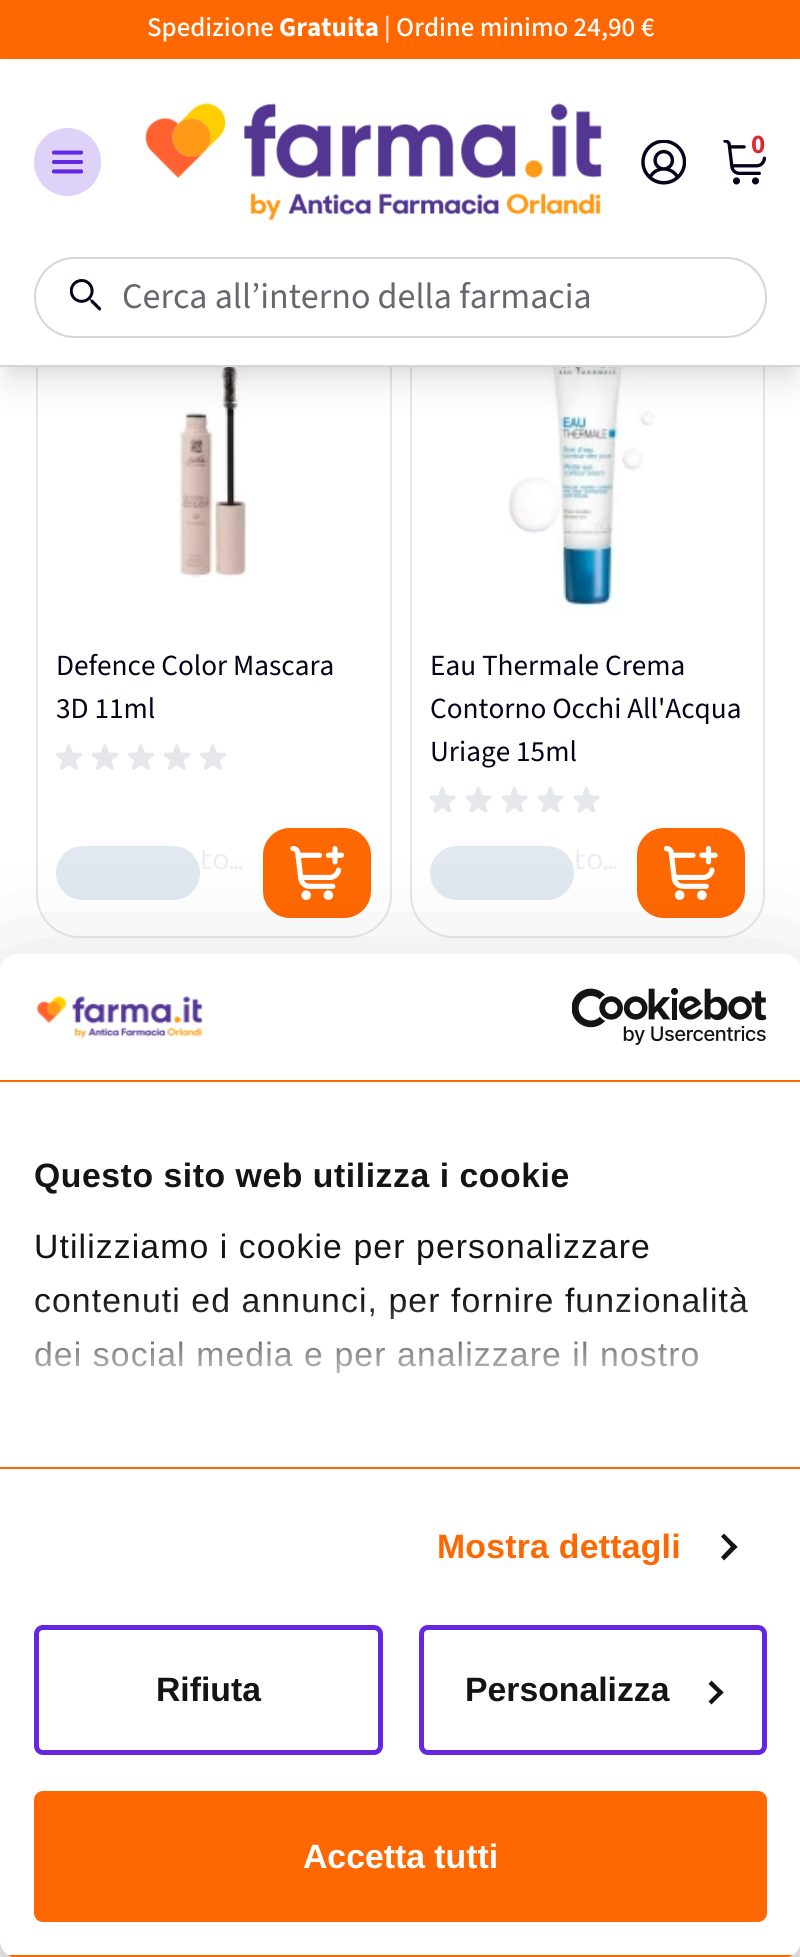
import math
import cairo

surface = cairo.ImageSurface(cairo.FORMAT_RGB24, 800, 1957)
cr = cairo.Context(surface)
options = cairo.FontOptions()
options.set_hint_metrics(cairo.HINT_METRICS_OFF)
options.set_hint_style(cairo.HINT_STYLE_NONE)
cr.set_font_options(options)
cr.set_miter_limit(4)


def rgb(code):
    cr.set_source_rgb(*(v / 255 for v in bytes.fromhex(code[-6:])))


def tracked(x, y, s, letter, word):
    cr.move_to(x, y)
    for ch in s:
        cr.show_text(ch)
        cr.rel_move_to(letter + word * (ch == ' '), 0)


def rrect(x, y, w, h, r):
    cr.new_sub_path()
    for i, (u, v) in enumerate([(x + w - r, y + h - r), (x + r, y + h - r), (x + r, y + r), (x + w - r, y + r)]):
        cr.arc(u, v, r, i * math.pi / 2, (i + 1) * math.pi / 2)
    cr.close_path()


def soft_shadow(x, y, w, h, r, blur, alpha):
    cr.push_group_with_content(cairo.CONTENT_ALPHA)
    cr.set_operator(cairo.OPERATOR_SOURCE)
    for i in range(15, -16, -2):
        e = blur * i / 6
        if min(w, h) + 2 * e > 0:
            cr.set_source_rgba(0, 0, 0, alpha * math.erfc((i - 1) / 8.5) / 2)
            rrect(x - e, y - e, w + 2 * e, h + 2 * e, max(0, min(r + e + blur * .6, min(w, h) / 2 + e)))
            cr.fill()
    cr.mask(cr.pop_group())


def image(path, x, y, w, h):
    cr.save()
    cr.set_source_surface(cairo.ImageSurface.create_from_png(path), x, y)
    cr.rectangle(x, y, w, h)
    cr.fill()
    cr.restore()


rgb("#ffffff")
cr.paint()
rgb("#ff6801")
cr.rectangle(0, 0, 800, 59)
cr.fill()
rrect(37, 312, 354, 625, 42)
rgb("#e5e7eb")
cr.stroke()
image("img/6.png", 177, 367, 71, 215)
rrect(411, 312, 353, 625, 42)
cr.stroke()
image("img/9.png", 508, 367, 147, 243)
rgb("#000000")
soft_shadow(9, 77, 783, 290, 0, 7, 0.1)
soft_shadow(7, 88, 787, 295, 0, 17, 0.1)
rgb("#ffffff")
cr.rectangle(0, 64, 800, 301)
cr.fill()
rgb("#d6d6d6")
cr.rectangle(0, 365, 800, 2)
cr.fill()
rgb("#dfd2f9")
rrect(34, 128, 67, 68, 33.5)
cr.fill()
image("img/1.png", 52, 150, 31, 24)
image("img/2.png", 145, 103, 457, 118)
image("img/3.png", 641, 140, 45, 45)
image("img/4.png", 723, 140, 44, 45)
rrect(35, 258, 731, 79, 39.5)
rgb("#d6d6d6")
cr.stroke()
image("img/5.png", 70, 279, 31, 32)
image("img/7.png", 56, 744, 27, 26)
image("img/7.png", 92, 744, 27, 26)
image("img/7.png", 128, 744, 27, 26)
image("img/7.png", 164, 744, 27, 26)
image("img/7.png", 200, 744, 27, 26)
rgb("#e2e8f0")
rrect(56, 846, 144, 54, 27)
cr.fill()
rgb("#ff6801")
rrect(263, 828, 108, 90, 27)
cr.fill()
image("img/8.png", 290, 846, 54, 54)
image("img/10.png", 430, 787, 26, 26)
image("img/10.png", 466, 787, 26, 26)
image("img/10.png", 502, 787, 26, 26)
image("img/10.png", 538, 787, 26, 26)
image("img/10.png", 574, 787, 26, 26)
rgb("#e2e8f0")
rrect(430, 846, 144, 54, 27)
cr.fill()
rgb("#ff6801")
rrect(637, 828, 108, 90, 27)
cr.fill()
image("img/11.png", 664, 846, 54, 54)
rgb("#000000")
soft_shadow(0, 1026, 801, 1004, 18, 76.5, 0.3)
rgb("#ffffff")
rrect(0, 954, 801, 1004, 18)
cr.fill()
rgb("#ff6801")
cr.rectangle(0, 1080, 800, 2)
cr.fill()
image("img/12.png", 37, 995, 166, 44)
image("img/13.png", 572, 988, 195, 57)
cr.rectangle(0, 1467, 800, 2)
cr.fill()
rgb("#141414")
cr.new_path()
cr.move_to(724, 1533.5)
cr.line_to(737.5, 1547)
cr.line_to(734, 1550)
cr.line_to(721, 1536.5)
cr.close_path()
cr.fill()
cr.new_path()
cr.move_to(734, 1543.5)
cr.line_to(737.5, 1547)
cr.line_to(724, 1560.5)
cr.line_to(721, 1557)
cr.close_path()
cr.fill()
cr.save()
rrect(0, 954, 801, 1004, 18)
cr.clip()
rgb("#ff6801")
cr.rectangle(0, 1955, 800, 2)
cr.fill()
cr.restore()
rrect(36.5, 1627.5, 344, 125, 6.5)
rgb("#6327e0")
cr.set_line_width(5)
cr.stroke()
rrect(421.5, 1627.5, 343, 125, 6.5)
cr.stroke()
rgb("#141414")
cr.new_path()
cr.move_to(711.5, 1680.5)
cr.line_to(723.5, 1692.5)
cr.line_to(720.5, 1695.5)
cr.line_to(708.5, 1684)
cr.close_path()
cr.fill()
cr.new_path()
cr.move_to(720.5, 1689.5)
cr.line_to(723.5, 1692.5)
cr.line_to(711.5, 1704.5)
cr.line_to(708.5, 1701.5)
cr.close_path()
cr.fill()
rgb("#ff6801")
rrect(36.5, 1793.5, 728, 126, 6.5)
cr.fill_preserve()
cr.stroke()
cr.select_font_face("Source Sans 3 Medium")
cr.set_font_size(27)
rgb("#ffffff")
cr.move_to(147, 36)
cr.show_text("Spedizione")
cr.select_font_face("Source Sans 3", cairo.FONT_SLANT_NORMAL, cairo.FONT_WEIGHT_BOLD)
cr.move_to(279, 36)
cr.show_text("Gratuita")
cr.select_font_face("Source Sans 3 Medium")
cr.move_to(384, 36)
cr.show_text("| Ordine minimo 24,90 €")
cr.select_font_face("Source Sans 3", cairo.FONT_SLANT_NORMAL, cairo.FONT_WEIGHT_BOLD)
rgb("#e02832")
cr.move_to(751, 153)
cr.show_text("0")
cr.select_font_face("Source Sans 3")
cr.set_font_size(36)
rgb("#68666e")
cr.move_to(122, 308)
cr.show_text("Cerca all’interno della farmacia")
cr.set_font_size(29.25)
rgb("#08011a")
cr.move_to(56, 675)
cr.show_text("Defence Color Mascara")
cr.move_to(56, 718)
cr.show_text("3D 11ml")
cr.select_font_face("Baloo Bhaina 2")
cr.set_font_size(32)
rgb("#eaeef4")
cr.move_to(200, 869)
cr.show_text("to...")
cr.select_font_face("Source Sans 3")
cr.set_font_size(29.25)
rgb("#08011a")
for x, y, s in [
    (430, 675, "Eau Thermale Crema"),
    (430, 718, "Contorno Occhi All'Acqua"),
    (430, 761, "Uriage 15ml"),
]:
    cr.move_to(x, y)
    cr.show_text(s)
cr.select_font_face("Baloo Bhaina 2")
cr.set_font_size(32)
rgb("#eaeef4")
cr.move_to(574, 869)
cr.show_text("to...")
cr.select_font_face("Liberation Sans", cairo.FONT_SLANT_NORMAL, cairo.FONT_WEIGHT_BOLD)
cr.set_font_size(33.75)
rgb("#141414")
tracked(34, 1187, "Questo sito web utilizza i cookie", 0.55, 0)
cr.select_font_face("Liberation Sans")
for x, y, s in [
    (34, 1258, "Utilizziamo i cookie per personalizzare"),
    (34, 1312, "contenuti ed annunci, per fornire funzionalità"),
    (34, 1366, "dei social media e per analizzare il nostro"),
]:
    tracked(x, y, s, 1.1, 0)
gradient = cairo.LinearGradient(386, 1467, 386, 1298)
gradient.add_color_stop_rgba(0, 1, 1, 1, 1)
gradient.add_color_stop_rgba(0.5, 1, 1, 1, 0.8)
gradient.add_color_stop_rgba(1, 1, 1, 1, 0)
cr.set_source(gradient)
cr.rectangle(35, 1300, 714, 73)
cr.fill()
cr.select_font_face("Liberation Sans", cairo.FONT_SLANT_NORMAL, cairo.FONT_WEIGHT_BOLD)
rgb("#ff6801")
tracked(437, 1558, "Mostra dettagli", 0.25, 0)
rgb("#141414")
cr.move_to(156, 1701)
cr.show_text("Rifiuta")
cr.move_to(465, 1701)
cr.show_text("Personalizza")
rgb("#ffffff")
cr.move_to(303, 1868)
cr.show_text("Accetta tutti")
surface.write_to_png("page.png")
